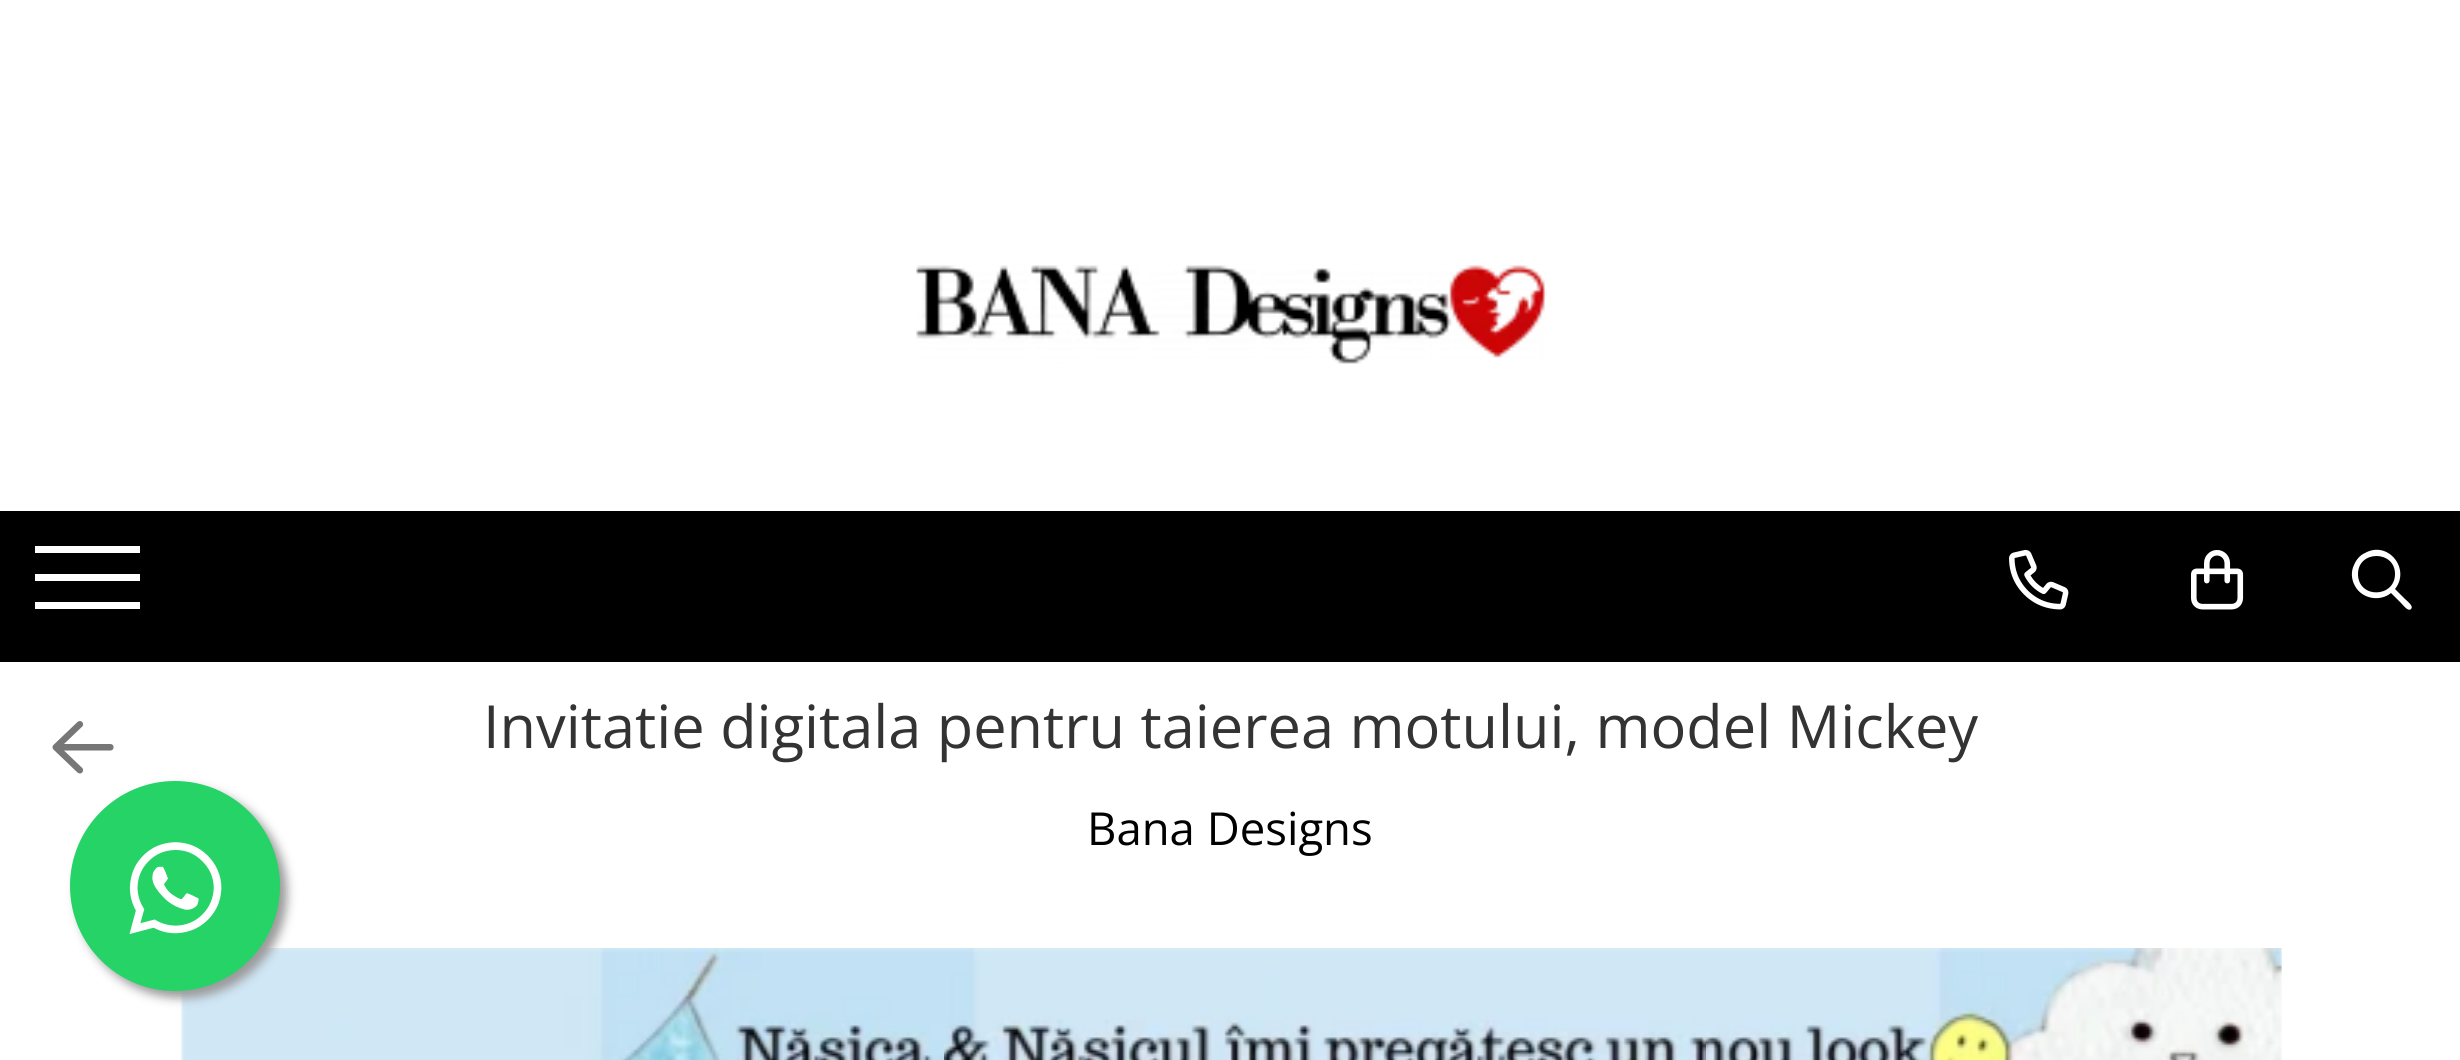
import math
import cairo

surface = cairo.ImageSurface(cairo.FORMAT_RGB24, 2460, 1060)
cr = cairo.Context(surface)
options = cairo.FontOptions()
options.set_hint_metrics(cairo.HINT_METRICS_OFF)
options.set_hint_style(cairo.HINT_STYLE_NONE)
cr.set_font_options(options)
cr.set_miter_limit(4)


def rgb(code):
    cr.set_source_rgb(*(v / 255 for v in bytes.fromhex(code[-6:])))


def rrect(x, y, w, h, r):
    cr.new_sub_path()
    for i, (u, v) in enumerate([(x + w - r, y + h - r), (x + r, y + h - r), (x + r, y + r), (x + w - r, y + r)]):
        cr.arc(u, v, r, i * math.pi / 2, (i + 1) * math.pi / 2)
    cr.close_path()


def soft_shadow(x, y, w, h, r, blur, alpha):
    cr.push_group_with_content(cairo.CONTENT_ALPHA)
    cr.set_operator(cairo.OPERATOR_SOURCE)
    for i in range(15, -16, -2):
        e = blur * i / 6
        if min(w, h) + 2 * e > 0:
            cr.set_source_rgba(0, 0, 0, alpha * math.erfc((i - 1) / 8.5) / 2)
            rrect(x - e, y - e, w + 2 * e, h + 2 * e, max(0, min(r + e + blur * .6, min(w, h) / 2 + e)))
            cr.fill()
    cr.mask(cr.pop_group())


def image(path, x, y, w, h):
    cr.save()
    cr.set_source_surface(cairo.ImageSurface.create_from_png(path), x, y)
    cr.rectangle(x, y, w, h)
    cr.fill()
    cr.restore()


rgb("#ffffff")
cr.paint()
image("img/5.png", 52, 721, 62, 53)
image("img/6.png", 180, 948, 2102, 112)
rgb("#999999")
soft_shadow(77, 788, 210, 210, 105, 5, 1)
rgb("#25d366")
cr.arc(175, 886, 105, 0, 2 * math.pi)
cr.fill()
image("img/1.png", 129, 842, 93, 92)
image("img/2.png", 916, 265, 631, 99)
for x, y, w, h, color in [
    (0, 511, 2460, 151, "#000000"),
    (35, 574, 105, 7, "#ffffff"),
    (35, 546, 105, 7, "#ffffff"),
    (35, 602, 105, 7, "#ffffff"),
]:
    rgb(color)
    cr.rectangle(x, y, w, h)
    cr.fill()
image("img/3.png", 2009, 549, 60, 61)
image("img/4.png", 2191, 550, 53, 60)
cr.new_path()
cr.move_to(2395, 589)
cr.curve_to(2411, 569, 2388, 540, 2365, 553)
cr.curve_to(2360, 555, 2356, 560, 2354, 565)
cr.curve_to(2351, 571, 2351, 579, 2355, 586)
cr.curve_to(2362, 599, 2380, 602, 2391, 593)
cr.line_to(2401, 603)
cr.curve_to(2403, 605, 2408, 612, 2411, 609)
cr.curve_to(2414, 606, 2407, 601, 2405, 599)
cr.close_path()
cr.move_to(2358, 574)
cr.curve_to(2358, 550, 2395, 550, 2395, 574)
cr.curve_to(2395, 598, 2358, 599, 2358, 574)
cr.close_path()
cr.fill()
cr.select_font_face("Open Sans")
cr.set_font_size(59.5)
rgb("#333333")
cr.move_to(483, 748)
cr.show_text("Invitatie digitala pentru taierea motului, model Mickey")
cr.set_font_size(45.5)
rgb("#000000")
cr.move_to(1087, 845)
cr.show_text("Bana Designs")
surface.write_to_png("page.png")
